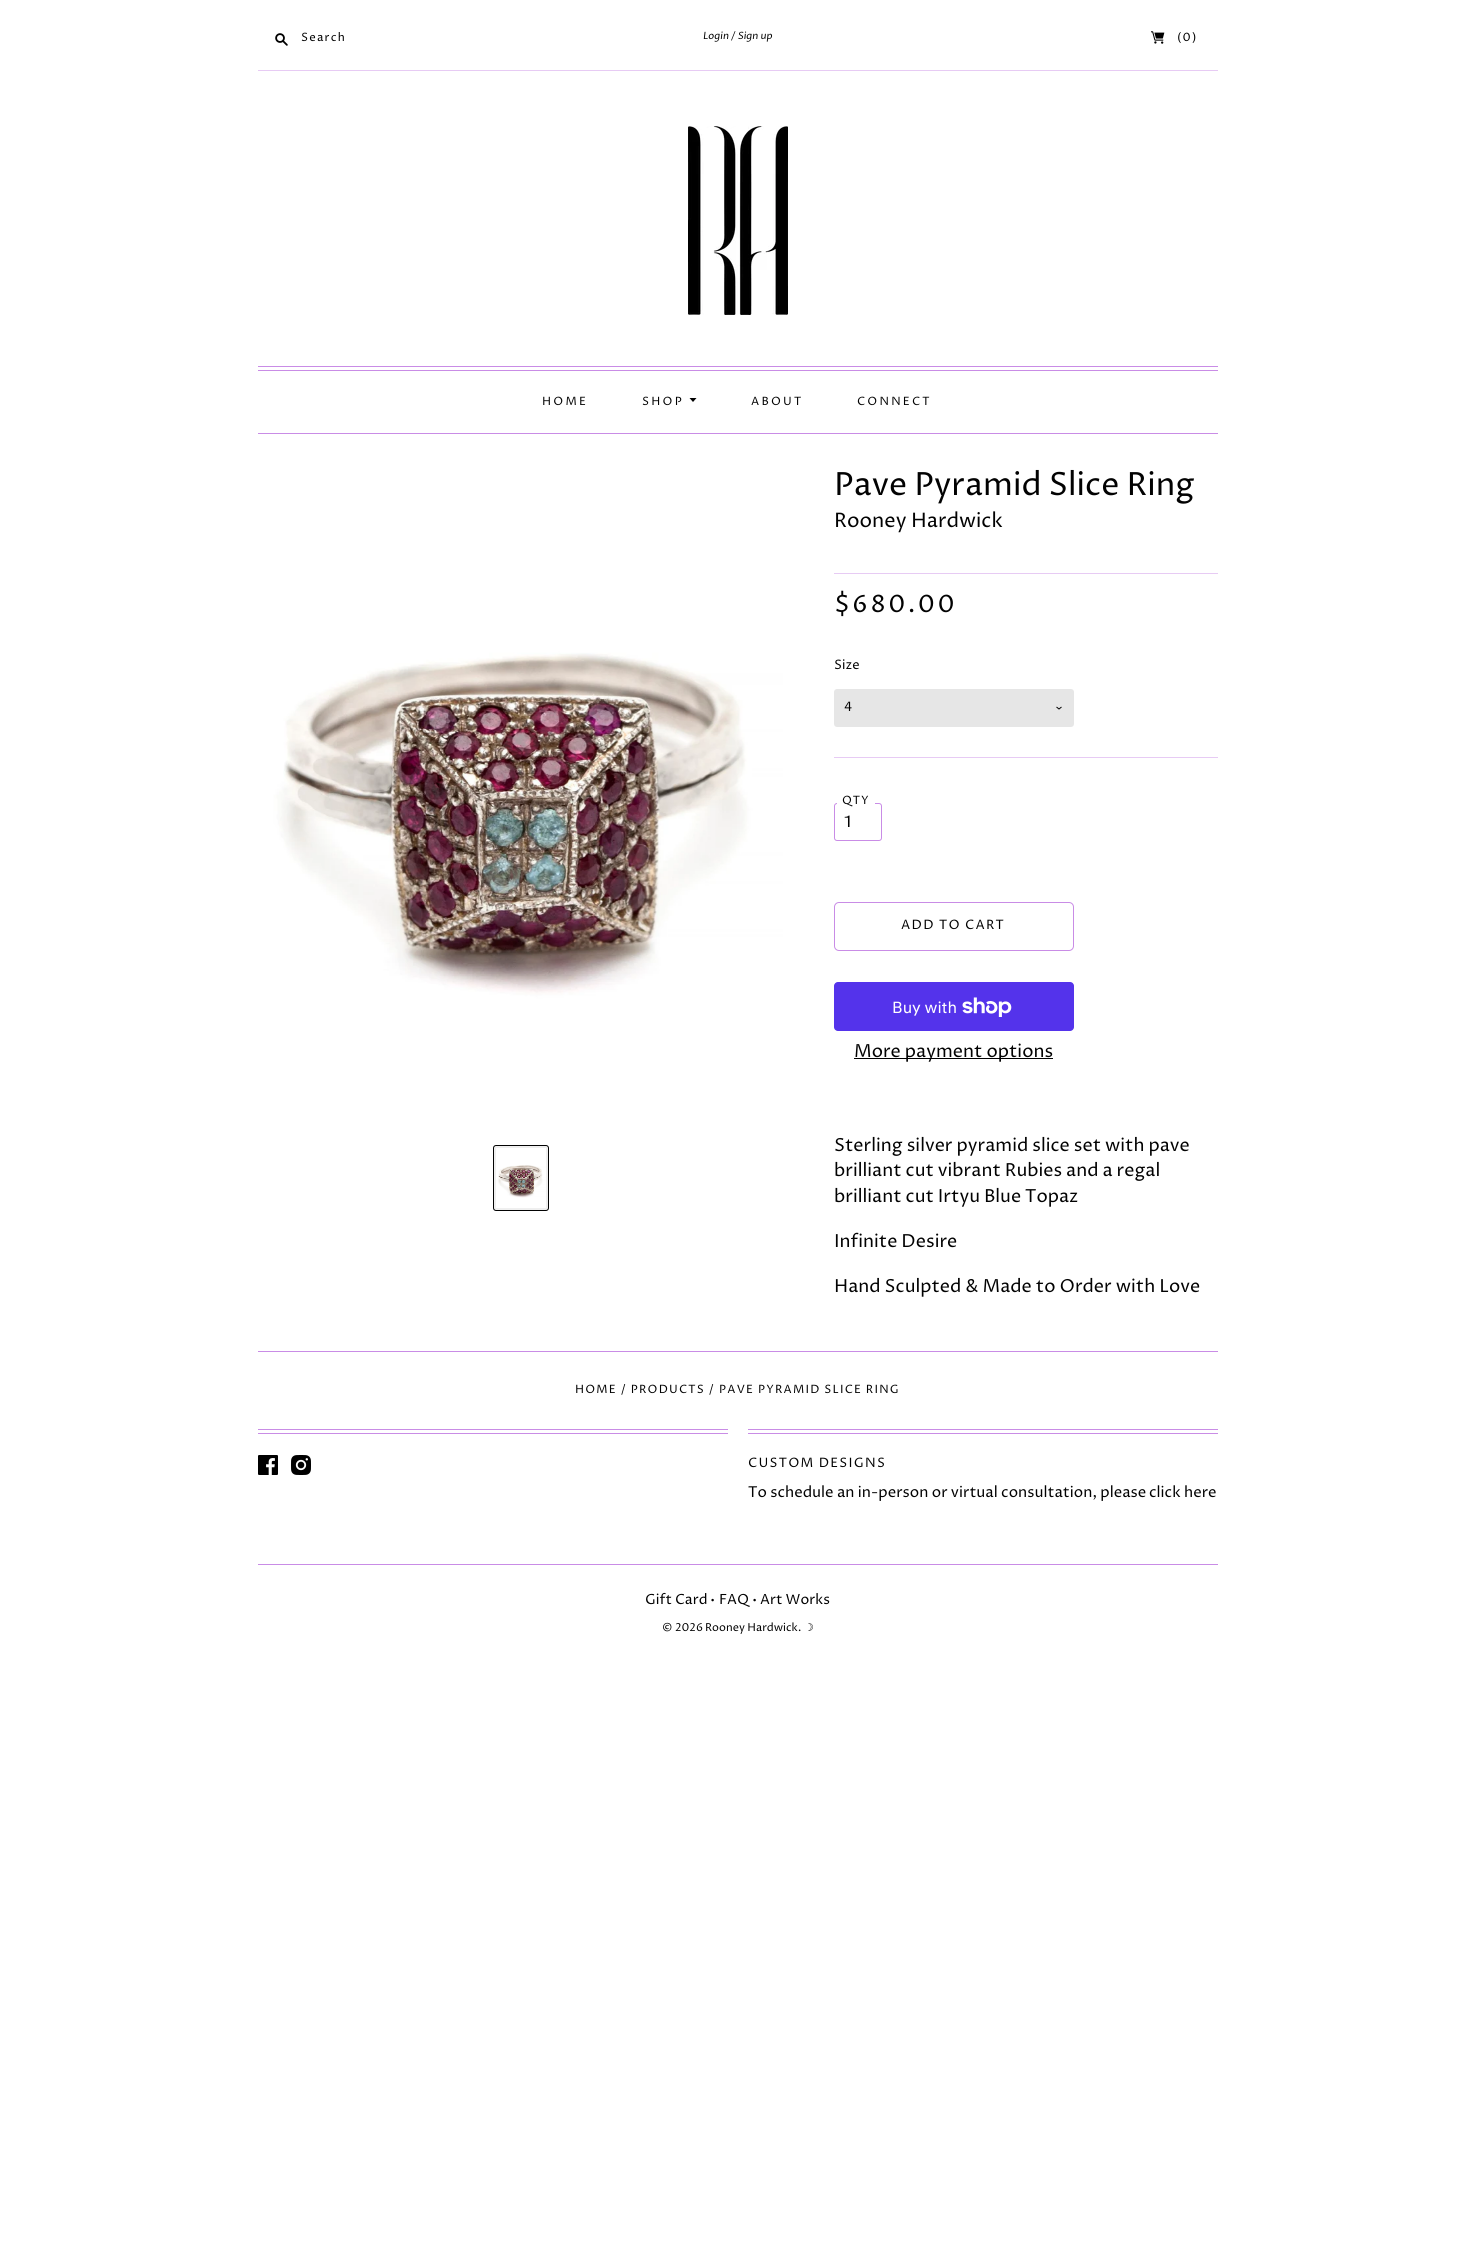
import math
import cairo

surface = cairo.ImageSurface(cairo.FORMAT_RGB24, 1475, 2246)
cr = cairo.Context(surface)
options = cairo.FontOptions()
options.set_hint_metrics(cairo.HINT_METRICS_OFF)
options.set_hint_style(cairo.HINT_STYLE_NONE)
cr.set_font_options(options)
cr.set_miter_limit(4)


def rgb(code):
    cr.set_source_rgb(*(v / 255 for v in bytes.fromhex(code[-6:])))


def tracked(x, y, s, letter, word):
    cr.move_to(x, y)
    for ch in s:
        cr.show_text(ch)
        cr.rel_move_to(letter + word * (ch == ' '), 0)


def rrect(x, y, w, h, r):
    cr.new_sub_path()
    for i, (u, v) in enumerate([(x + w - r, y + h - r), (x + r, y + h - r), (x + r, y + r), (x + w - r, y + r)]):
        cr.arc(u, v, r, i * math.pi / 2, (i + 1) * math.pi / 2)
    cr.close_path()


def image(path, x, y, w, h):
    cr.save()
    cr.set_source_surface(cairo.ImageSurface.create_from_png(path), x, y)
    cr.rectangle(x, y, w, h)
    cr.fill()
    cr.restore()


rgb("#ffffff")
cr.paint()
rgb("#e7cbf4")
cr.rectangle(258, 70, 960, 1)
cr.fill()
image("img/1.png", 275, 33, 13, 13)
image("img/2.png", 1151, 31, 14, 13)
image("img/3.png", 688, 126, 100, 189)
rgb("#c98ce6")
cr.rectangle(258, 370, 960, 1)
cr.fill()
cr.rectangle(258, 366, 960, 1)
cr.fill()
rgb("#000000")
cr.set_fill_rule(cairo.FILL_RULE_EVEN_ODD)
cr.new_path()
cr.move_to(689.5, 398)
cr.line_to(696.5, 398)
cr.line_to(693, 402)
cr.fill()
rgb("#c98ce6")
cr.rectangle(258, 433, 960, 1)
cr.fill()
image("img/4.png", 258, 474, 525, 631)
rgb("#efefef")
rrect(493.5, 1145.5, 55, 65, 2.5)
cr.fill_preserve()
rgb("#020202")
cr.set_line_width(1)
cr.stroke()
image("img/5.png", 496, 1148, 50, 60)
rgb("#e7cbf4")
cr.rectangle(834, 573, 384, 1)
cr.fill()
cr.rectangle(834, 757, 384, 1)
cr.fill()
rgb("#e6e6e6")
rrect(834, 689, 240, 38, 3)
cr.fill()
cr.new_path()
cr.move_to(1056.5, 707)
cr.line_to(1059, 709)
cr.line_to(1061.5, 707)
rgb("#020202")
cr.stroke()
rrect(834.5, 803.5, 47, 37, 2.5)
rgb("#c98ce6")
cr.stroke()
rgb("#ffffff")
cr.rectangle(837, 803, 38, 1)
cr.fill()
rrect(834.5, 902.5, 239, 48, 4.5)
rgb("#c98ce6")
cr.stroke()
rgb("#5433eb")
rrect(834, 982, 240, 49, 4)
cr.fill()
image("img/6.png", 962, 997, 50, 20)
for x, y, w, h, color in [
    (854, 1058, 199, 1, "#000000"),
    (258, 1351, 960, 1, "#c98ce6"),
    (258, 1429, 470, 1, "#c98ce6"),
    (258, 1433, 470, 1, "#c98ce6"),
]:
    rgb(color)
    cr.rectangle(x, y, w, h)
    cr.fill()
image("img/7.png", 258, 1455, 20, 20)
image("img/8.png", 291, 1455, 20, 20)
for x, y, w, h, color in [
    (748, 1429, 470, 1, "#c98ce6"),
    (748, 1433, 470, 1, "#c98ce6"),
    (258, 1564, 960, 1, "#c98ce6"),
]:
    rgb(color)
    cr.rectangle(x, y, w, h)
    cr.fill()
cr.select_font_face("Proza Libre")
cr.set_font_size(11.5)
rgb("#020202")
tracked(301, 41, "Search", 1.2, 0)
cr.select_font_face("Proza Libre", cairo.FONT_SLANT_ITALIC)
cr.set_font_size(10)
cr.move_to(703, 39)
cr.show_text("Login")
cr.move_to(731, 39)
cr.show_text("/ Sign up")
cr.select_font_face("Proza Libre")
cr.set_font_size(11.5)
tracked(1177, 41, "(0)", 1.2, 0)
for x, y, s in [
    (542, 405, "HOME"),
    (642, 405, "SHOP"),
    (751, 405, "ABOUT"),
    (857, 405, "CONNECT"),
]:
    tracked(x, y, s, 2.25, 0)
cr.set_font_size(32)
cr.move_to(834, 495)
cr.show_text("Pave Pyramid Slice Ring")
cr.set_font_size(20)
cr.move_to(834, 527)
cr.show_text("Rooney Hardwick")
cr.set_font_size(24)
tracked(834, 612, "$680.00", 2.5, 0)
cr.set_font_size(13)
cr.move_to(834, 669)
cr.show_text("Size")
tracked(844, 711, "4", 1, 0)
cr.set_font_size(11.5)
tracked(842, 804, "QTY", 1, 0)
cr.set_font_size(16)
cr.move_to(844, 827)
cr.show_text("1")
cr.set_font_size(13)
tracked(901, 929, "ADD TO CART", 1.25, 0)
cr.select_font_face("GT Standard")
cr.set_font_size(16)
rgb("#ffffff")
cr.move_to(892, 1013)
cr.show_text("Buy with")
cr.select_font_face("Proza Libre")
cr.set_font_size(18)
rgb("#020202")
for x, y, s in [
    (854, 1057, "More payment options"),
    (834, 1151, "Sterling silver pyramid slice set with pave"),
    (834, 1176, "brilliant cut vibrant Rubies and a regal"),
    (834, 1202, "brilliant cut Irtyu Blue Topaz"),
    (834, 1247, "Infinite Desire"),
    (834, 1292, "Hand Sculpted & Made to Order with Love"),
]:
    cr.move_to(x, y)
    cr.show_text(s)
cr.set_font_size(11.5)
tracked(575, 1393, "HOME / PRODUCTS /", 1.2, 0)
tracked(719, 1393, "PAVE PYRAMID SLICE RING", 1.2, 0)
cr.set_font_size(13)
tracked(748, 1467, "CUSTOM DESIGNS", 1.25, 0)
cr.set_font_size(15)
cr.move_to(748, 1497)
cr.show_text("To schedule an in-person or virtual consultation, please")
cr.move_to(1149, 1497)
cr.show_text("click here")
cr.set_font_size(14)
for x, y, s in [
    (645, 1604, "Gift Card"),
    (710, 1604, "•"),
    (719, 1604, "FAQ"),
    (752, 1604, "•"),
    (760, 1604, "Art Works"),
]:
    cr.move_to(x, y)
    cr.show_text(s)
cr.set_font_size(11)
for x, y, s in [
    (662, 1631, "© 2026"),
    (705, 1631, "Rooney Hardwick"),
    (798, 1631, "."),
]:
    cr.move_to(x, y)
    cr.show_text(s)
cr.select_font_face("DejaVu Sans")
cr.move_to(804, 1631)
cr.show_text("☽")
surface.write_to_png("page.png")
